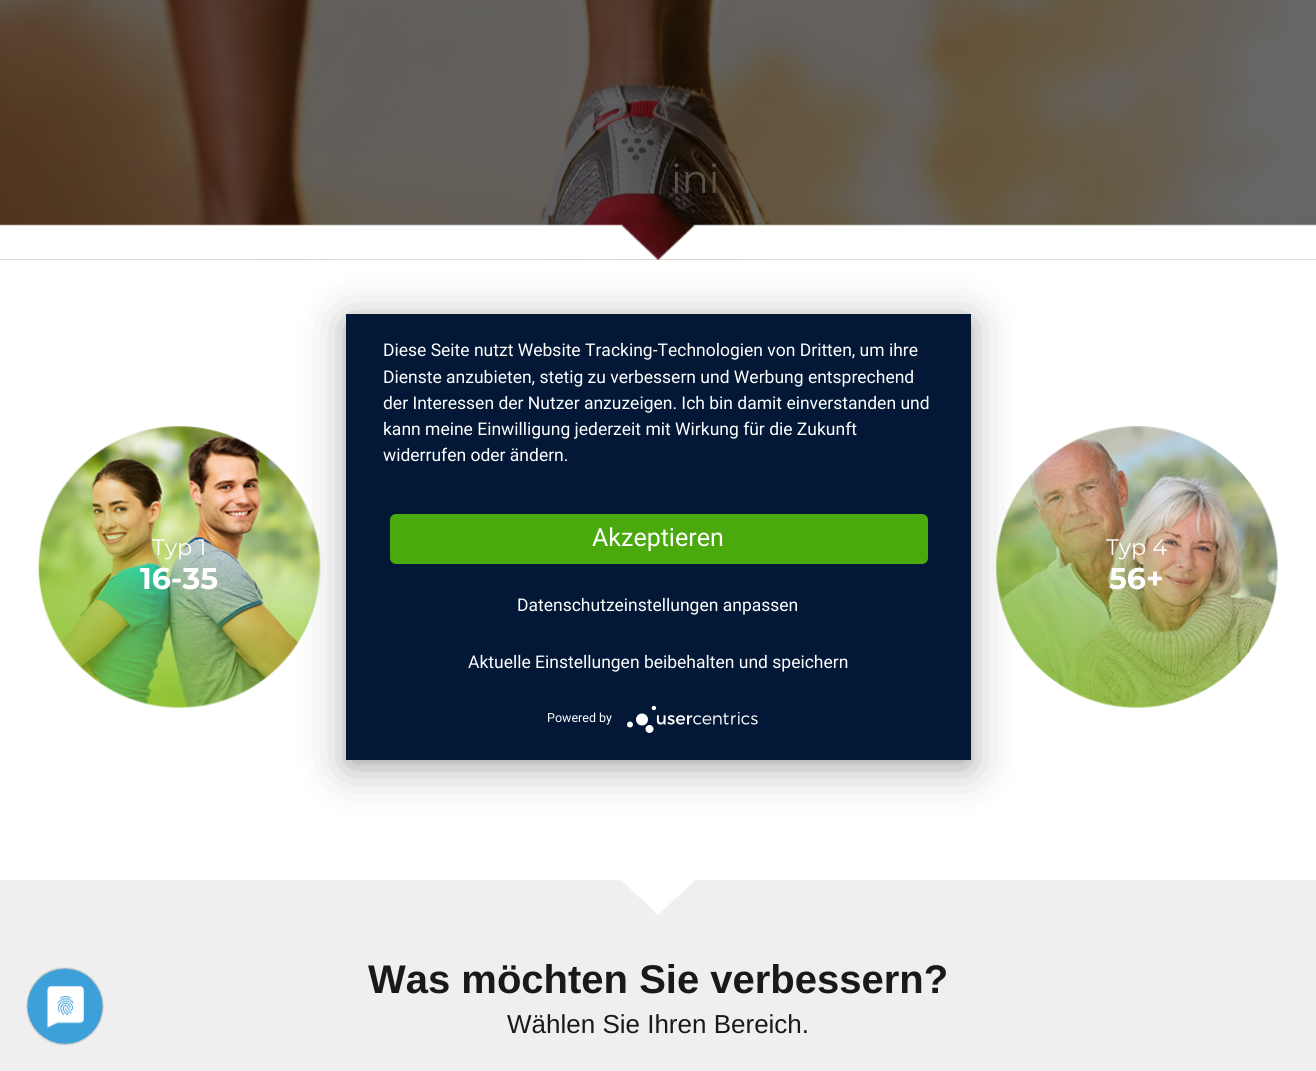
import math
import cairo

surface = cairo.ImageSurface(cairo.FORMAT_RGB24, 1316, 1071)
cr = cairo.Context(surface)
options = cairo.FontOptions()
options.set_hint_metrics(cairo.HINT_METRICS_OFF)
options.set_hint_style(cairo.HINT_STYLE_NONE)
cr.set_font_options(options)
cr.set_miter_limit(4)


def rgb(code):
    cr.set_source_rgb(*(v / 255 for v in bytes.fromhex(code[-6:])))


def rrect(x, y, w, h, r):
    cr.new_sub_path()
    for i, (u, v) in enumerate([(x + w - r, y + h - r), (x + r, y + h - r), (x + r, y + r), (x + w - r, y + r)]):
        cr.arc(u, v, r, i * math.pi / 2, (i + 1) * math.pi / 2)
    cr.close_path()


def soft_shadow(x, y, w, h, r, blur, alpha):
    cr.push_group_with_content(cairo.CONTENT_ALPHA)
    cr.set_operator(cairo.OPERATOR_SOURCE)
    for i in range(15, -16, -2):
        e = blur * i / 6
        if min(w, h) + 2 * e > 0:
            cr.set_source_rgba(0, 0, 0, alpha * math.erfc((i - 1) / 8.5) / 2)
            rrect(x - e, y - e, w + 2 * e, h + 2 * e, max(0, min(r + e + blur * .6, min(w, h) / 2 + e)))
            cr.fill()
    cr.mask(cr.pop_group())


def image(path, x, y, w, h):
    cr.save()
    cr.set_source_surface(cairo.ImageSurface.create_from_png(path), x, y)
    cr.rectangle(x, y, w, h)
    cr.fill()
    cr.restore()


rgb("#ffffff")
cr.paint()
image("img/1.png", 0, 0, 1316, 260)
image("img/2.png", 0, 224, 1316, 36)
image("img/3.png", 38, 426, 283, 282)
image("img/4.png", 996, 426, 282, 282)
rgb("#efefef")
cr.rectangle(0, 915, 1316, 156)
cr.fill()
image("img/5.png", 0, 880, 1316, 35)
rgb("#000000")
soft_shadow(346, 318, 625, 446, 6, 6, 0.1)
soft_shadow(346, 321, 625, 447, 0, 22.5, 0.3)
rgb("#021836")
cr.rectangle(346, 314, 625, 446)
cr.fill()
rgb("#49a90d")
rrect(390, 514, 538, 50, 6)
cr.fill()
image("img/6.png", 627, 705, 131, 28)
image("img/7.png", 26, 967, 78, 79)
cr.select_font_face("Montserrat")
cr.set_font_size(40)
rgb("#595249")
cr.move_to(671, 193)
cr.show_text("ini")
cr.set_font_size(22.5)
rgb("#ffffff")
cr.move_to(152, 555)
cr.show_text("Typ 1")
cr.select_font_face("Montserrat", cairo.FONT_SLANT_NORMAL, cairo.FONT_WEIGHT_BOLD)
cr.set_font_size(30)
cr.move_to(140, 589)
cr.show_text("16-35")
cr.select_font_face("Montserrat")
cr.set_font_size(22.5)
cr.move_to(1106, 555)
cr.show_text("Typ 4")
cr.select_font_face("Montserrat", cairo.FONT_SLANT_NORMAL, cairo.FONT_WEIGHT_BOLD)
cr.set_font_size(30)
cr.move_to(1109, 589)
cr.show_text("56+")
cr.select_font_face("Liberation Sans", cairo.FONT_SLANT_NORMAL, cairo.FONT_WEIGHT_BOLD)
cr.set_font_size(40)
rgb("#181919")
cr.move_to(368, 993)
cr.show_text("Was möchten Sie verbessern?")
cr.select_font_face("Liberation Sans")
cr.set_font_size(26)
cr.move_to(507, 1033)
cr.show_text("Wählen Sie Ihren Bereich.")
cr.select_font_face("Roboto")
cr.set_font_size(17.5)
rgb("#ffffff")
for x, y, s in [
    (383, 356, "Diese Seite nutzt Website Tracking-Technologien von Dritten, um ihre"),
    (383, 383, "Dienste anzubieten, stetig zu verbessern und Werbung entsprechend"),
    (383, 409, "der Interessen der Nutzer anzuzeigen. Ich bin damit einverstanden und"),
    (383, 435, "kann meine Einwilligung jederzeit mit Wirkung für die Zukunft"),
    (383, 461, "widerrufen oder ändern."),
]:
    cr.move_to(x, y)
    cr.show_text(s)
cr.set_font_size(25)
cr.move_to(592, 546)
cr.show_text("Akzeptieren")
cr.set_font_size(17.5)
cr.move_to(517, 611)
cr.show_text("Datenschutzeinstellungen anpassen")
cr.move_to(468, 668)
cr.show_text("Aktuelle Einstellungen beibehalten und speichern")
cr.set_font_size(12.5)
cr.move_to(547, 722)
cr.show_text("Powered by")
surface.write_to_png("page.png")
